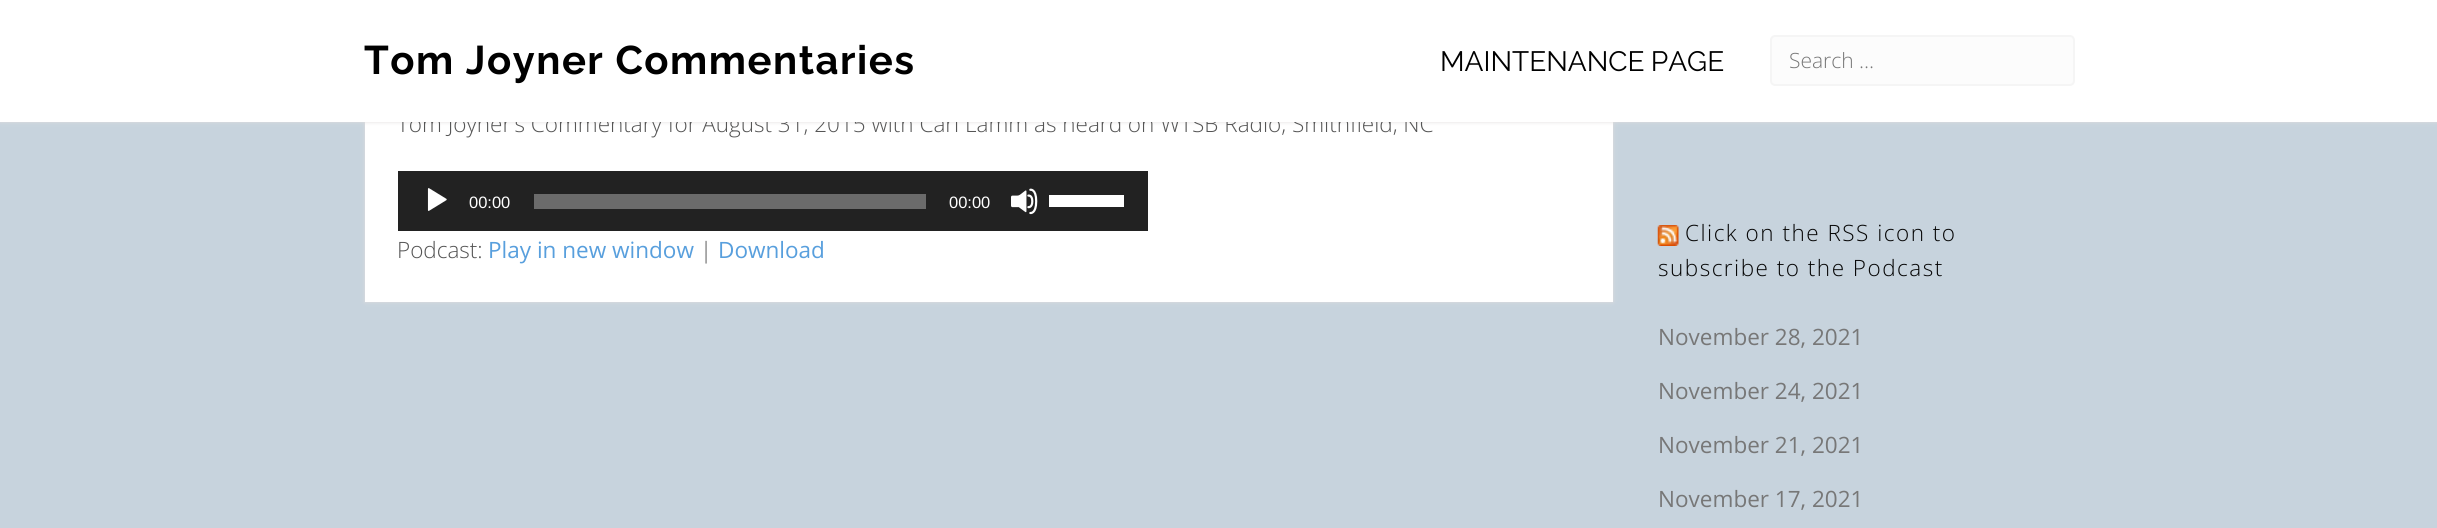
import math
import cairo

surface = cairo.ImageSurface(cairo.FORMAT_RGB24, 2437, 528)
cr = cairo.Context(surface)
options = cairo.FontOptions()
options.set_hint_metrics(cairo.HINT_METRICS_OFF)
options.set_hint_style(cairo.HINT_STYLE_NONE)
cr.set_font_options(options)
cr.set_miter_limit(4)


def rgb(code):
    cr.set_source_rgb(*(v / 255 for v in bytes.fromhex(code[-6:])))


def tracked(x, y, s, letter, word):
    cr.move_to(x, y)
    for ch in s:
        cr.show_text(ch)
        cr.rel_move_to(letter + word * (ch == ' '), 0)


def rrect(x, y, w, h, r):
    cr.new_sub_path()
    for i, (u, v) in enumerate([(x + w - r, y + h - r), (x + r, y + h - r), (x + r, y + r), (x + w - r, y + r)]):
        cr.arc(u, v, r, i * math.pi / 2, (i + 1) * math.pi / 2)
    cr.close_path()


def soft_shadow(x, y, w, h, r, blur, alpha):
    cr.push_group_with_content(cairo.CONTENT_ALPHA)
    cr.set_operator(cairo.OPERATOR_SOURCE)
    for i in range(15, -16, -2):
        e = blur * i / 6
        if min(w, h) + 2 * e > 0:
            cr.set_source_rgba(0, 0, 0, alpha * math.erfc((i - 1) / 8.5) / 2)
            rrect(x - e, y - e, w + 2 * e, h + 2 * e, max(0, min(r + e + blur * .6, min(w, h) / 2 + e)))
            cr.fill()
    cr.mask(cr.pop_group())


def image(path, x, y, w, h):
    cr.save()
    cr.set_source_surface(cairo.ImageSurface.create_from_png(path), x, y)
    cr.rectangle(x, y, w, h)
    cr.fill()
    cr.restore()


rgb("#c7d3dd")
cr.paint()
rgb("#e1dede")
soft_shadow(365, -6, 1248, 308, 0, 2, 1)
rgb("#ffffff")
cr.rectangle(365, 122, 1248, 180)
cr.fill()
rgb("#e1dede")
soft_shadow(0, 0, 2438, 122, 0, 2, 1)
rgb("#222222")
cr.rectangle(398, 171, 750, 60)
cr.fill()
image("img/1.png", 427, 188, 20, 23)
rgb("#6b6b6b")
cr.rectangle(534, 194, 392, 15)
cr.fill()
image("img/2.png", 1011, 188, 27, 27)
rgb("#ffffff")
cr.rectangle(1049, 195, 75, 12)
cr.fill()
image("img/3.png", 1657, 225, 22, 21)
cr.select_font_face("Open Sans Light")
cr.set_font_size(22.5)
rgb("#555555")
cr.move_to(397, 132)
cr.show_text("Tom Joyner’s Commentary for August 31, 2015 with Carl Lamm as heard on WTSB Radio, Smithfield, NC")
rgb("#ffffff")
cr.rectangle(0, 0, 2437, 122)
cr.fill()
cr.select_font_face("Raleway")
cr.set_font_size(28)
rgb("#000000")
tracked(1440, 71, "MAINTENANCE PAGE", 0, -1)
rgb("#fcfcfc")
rrect(1771, 36, 303, 49, 4)
cr.fill_preserve()
rgb("#f5f5f5")
cr.stroke()
cr.select_font_face("Open Sans Light")
cr.set_font_size(21)
rgb("#777777")
cr.move_to(1789, 68)
cr.show_text("Search …")
cr.select_font_face("Raleway", cairo.FONT_SLANT_NORMAL, cairo.FONT_WEIGHT_BOLD)
cr.set_font_size(40)
rgb("#000000")
tracked(364, 74, "Tom Joyner Commentaries", 1.5, 0)
cr.select_font_face("Liberation Sans")
cr.set_font_size(16.5)
rgb("#ffffff")
cr.move_to(469, 208)
cr.show_text("00:00")
cr.move_to(949, 208)
cr.show_text("00:00")
cr.select_font_face("Open Sans Light")
cr.set_font_size(22.5)
rgb("#555555")
cr.move_to(397, 258)
cr.show_text("Podcast:")
cr.select_font_face("Open Sans")
rgb("#589fdd")
cr.move_to(488, 258)
cr.show_text("Play in new window")
cr.select_font_face("Open Sans Light")
rgb("#555555")
cr.move_to(700, 258)
cr.show_text("|")
cr.select_font_face("Open Sans")
rgb("#589fdd")
cr.move_to(718, 258)
cr.show_text("Download")
cr.select_font_face("Open Sans Light")
rgb("#060606")
tracked(1685, 241, "Click on the RSS icon to", 1.5, 0)
tracked(1658, 276, "subscribe to the Podcast", 1.5, 0)
cr.select_font_face("Open Sans")
rgb("#777777")
for x, y, s in [
    (1658, 345, "November 28, 2021"),
    (1658, 399, "November 24, 2021"),
    (1658, 453, "November 21, 2021"),
    (1658, 507, "November 17, 2021"),
]:
    cr.move_to(x, y)
    cr.show_text(s)
surface.write_to_png("page.png")
